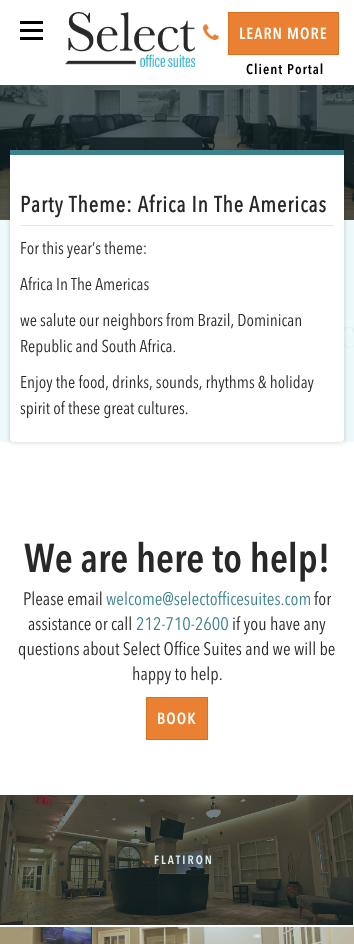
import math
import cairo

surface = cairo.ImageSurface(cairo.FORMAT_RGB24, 354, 944)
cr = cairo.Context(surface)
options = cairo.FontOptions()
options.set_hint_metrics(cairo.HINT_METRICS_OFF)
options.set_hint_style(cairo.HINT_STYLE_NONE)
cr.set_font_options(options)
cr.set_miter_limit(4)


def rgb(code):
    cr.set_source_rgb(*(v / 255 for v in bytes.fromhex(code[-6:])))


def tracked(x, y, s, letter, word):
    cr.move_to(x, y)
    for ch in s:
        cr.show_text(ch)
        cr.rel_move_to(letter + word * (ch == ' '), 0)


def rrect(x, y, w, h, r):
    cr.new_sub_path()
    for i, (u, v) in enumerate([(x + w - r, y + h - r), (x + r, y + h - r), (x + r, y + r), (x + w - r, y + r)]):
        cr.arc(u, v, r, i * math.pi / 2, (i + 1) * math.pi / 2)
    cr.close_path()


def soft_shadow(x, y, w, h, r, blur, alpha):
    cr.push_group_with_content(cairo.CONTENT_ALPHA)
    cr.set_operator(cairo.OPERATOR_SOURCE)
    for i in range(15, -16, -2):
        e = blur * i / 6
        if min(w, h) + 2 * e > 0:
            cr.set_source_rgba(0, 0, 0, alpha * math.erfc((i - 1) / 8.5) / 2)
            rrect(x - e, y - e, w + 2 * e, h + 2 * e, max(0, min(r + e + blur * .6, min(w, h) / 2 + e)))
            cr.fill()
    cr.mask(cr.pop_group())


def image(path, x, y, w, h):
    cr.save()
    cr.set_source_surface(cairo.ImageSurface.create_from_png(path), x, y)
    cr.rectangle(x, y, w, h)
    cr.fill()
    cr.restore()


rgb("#ffffff")
cr.paint()
for x, y, w, h, color in [
    (20, 29, 23, 3, "#000000"),
    (20, 21, 23, 3, "#000000"),
    (20, 37, 23, 3, "#000000"),
]:
    rgb(color)
    cr.rectangle(x, y, w, h)
    cr.fill()
image("img/1.png", 65, 12, 130, 55)
image("img/2.png", 203, 24, 16, 16)
rgb("#ea8132")
cr.rectangle(228.5, 12.5, 110, 42)
cr.fill_preserve()
rgb("#d87021")
cr.set_line_width(1)
cr.stroke()
rgb("#000000")
cr.rectangle(0, 85, 354, 135)
cr.fill()
image("img/3.png", 0, 85, 354, 135)
cr.set_source_rgba(0.235, 0.506, 0.549, 0.2)
cr.rectangle(0, 85, 354, 135)
cr.fill()
image("img/4.png", 0, 220, 354, 222)
rgb("#000000")
soft_shadow(10, 150, 334, 292, 3, 2.5, 0.2)
rgb("#ffffff")
rrect(10, 150, 334, 292, 3)
cr.fill()
rgb("#3c818c")
cr.rectangle(10, 150, 334, 5)
cr.fill()
rgb("#e6e6ee")
cr.rectangle(20, 225, 314, 1)
cr.fill()
rgb("#ea8132")
cr.rectangle(146.5, 697.5, 61, 42)
cr.fill_preserve()
rgb("#d87021")
cr.stroke()
image("img/5.png", 0, 795, 353, 130)
image("img/6.png", 0, 927, 354, 17)
cr.set_source_rgba(0.235, 0.506, 0.549, 0.2)
cr.rectangle(0, 927, 354, 17)
cr.fill()
cr.select_font_face("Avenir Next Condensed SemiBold")
cr.set_font_size(16)
rgb("#ffffff")
tracked(239, 39, "LEARN MORE", 1, 0)
cr.set_font_size(14)
rgb("#000000")
tracked(246, 74, "Client Portal", 1, 0)
cr.select_font_face("Avenir Next Condensed", cairo.FONT_SLANT_NORMAL, cairo.FONT_WEIGHT_BOLD)
cr.set_font_size(22)
rgb("#282829")
tracked(20, 212, "Party Theme: Africa In The Americas", 1, 0)
cr.select_font_face("Avenir Next Condensed")
cr.set_font_size(17)
for x, y, s in [
    (20, 254, "For this year’s theme:"),
    (20, 290, "Africa In The Americas"),
    (20, 326, "we salute our neighbors from Brazil, Dominican"),
    (20, 352, "Republic and South Africa."),
    (20, 388, "Enjoy the food, drinks, sounds, rhythms & holiday"),
    (20, 414, "spirit of these great cultures."),
]:
    cr.move_to(x, y)
    cr.show_text(s)
cr.select_font_face("Avenir Next Condensed SemiBold")
cr.set_font_size(40)
cr.move_to(24, 572)
cr.show_text("We are here to help!")
cr.select_font_face("Avenir Next Condensed")
cr.set_font_size(18)
cr.move_to(23, 605)
cr.show_text("Please email")
rgb("#3c818c")
cr.move_to(106, 605)
cr.show_text("welcome@selectofficesuites.com")
rgb("#282829")
cr.move_to(314, 605)
cr.show_text("for")
cr.move_to(28, 630)
cr.show_text("assistance or call")
rgb("#3c818c")
cr.move_to(136, 630)
cr.show_text("212-710-2600")
rgb("#282829")
for x, y, s in [
    (232, 630, "if you have any"),
    (18, 655, "questions about Select Office Suites and we will be"),
    (132, 680, "happy to help."),
]:
    cr.move_to(x, y)
    cr.show_text(s)
cr.select_font_face("Avenir Next Condensed SemiBold")
cr.set_font_size(16)
rgb("#ffffff")
tracked(157, 724, "BOOK", 1, 0)
cr.select_font_face("Liberation Serif")
cr.set_font_size(12)
rgb("#ea8132")
tracked(140, 864, "←", 2, 0)
cr.select_font_face("Avenir Next Condensed SemiBold")
rgb("#e2f3f5")
tracked(154, 864, "FLATIRON", 2, 0)
surface.write_to_png("page.png")
